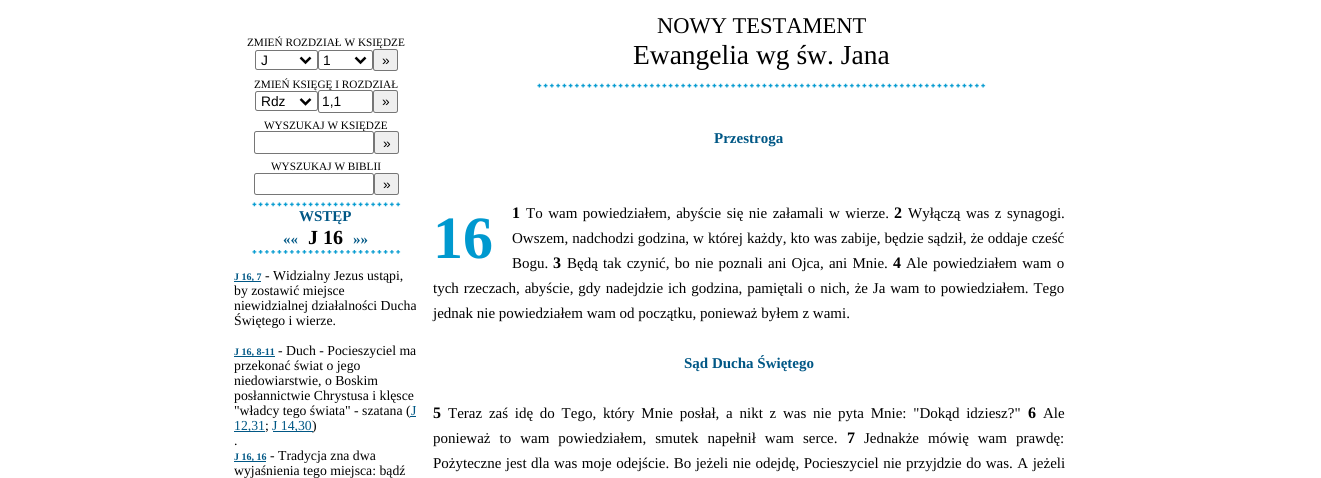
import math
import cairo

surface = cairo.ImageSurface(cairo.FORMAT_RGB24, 1321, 478)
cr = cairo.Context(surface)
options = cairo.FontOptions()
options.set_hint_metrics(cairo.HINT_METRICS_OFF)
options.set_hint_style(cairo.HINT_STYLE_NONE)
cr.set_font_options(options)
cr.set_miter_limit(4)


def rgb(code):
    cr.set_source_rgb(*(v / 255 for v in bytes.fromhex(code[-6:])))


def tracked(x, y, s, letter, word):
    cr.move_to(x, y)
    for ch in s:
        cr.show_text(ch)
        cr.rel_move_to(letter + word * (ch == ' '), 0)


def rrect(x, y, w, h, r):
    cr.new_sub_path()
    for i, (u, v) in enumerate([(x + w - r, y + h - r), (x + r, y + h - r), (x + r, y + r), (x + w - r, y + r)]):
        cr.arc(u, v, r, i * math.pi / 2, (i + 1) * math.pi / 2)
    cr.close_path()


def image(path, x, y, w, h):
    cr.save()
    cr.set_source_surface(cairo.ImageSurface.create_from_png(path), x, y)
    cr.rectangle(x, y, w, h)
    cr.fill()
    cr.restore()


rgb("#ffffff")
cr.paint()
rrect(255.5, 50.5, 62, 19, 2)
rgb("#767676")
cr.set_line_width(1)
cr.stroke()
cr.new_path()
cr.move_to(300.5, 57.5)
cr.line_to(305.5, 62.5)
cr.line_to(310.5, 57.5)
rgb("#000000")
cr.set_line_width(2.5)
cr.stroke()
rrect(318.5, 50.5, 54, 19, 2)
rgb("#767676")
cr.set_line_width(1)
cr.stroke()
cr.new_path()
cr.move_to(355.5, 57.5)
cr.line_to(360.5, 62.5)
cr.line_to(365.5, 57.5)
rgb("#000000")
cr.set_line_width(2.5)
cr.stroke()
rgb("#efefef")
rrect(373.5, 49.5, 24, 21, 2)
cr.fill_preserve()
rgb("#767676")
cr.set_line_width(1)
cr.stroke()
rrect(255.5, 91.5, 62, 19, 2)
cr.stroke()
cr.new_path()
cr.move_to(300.5, 99)
cr.line_to(305.5, 104)
cr.line_to(310.5, 99)
rgb("#000000")
cr.set_line_width(2.5)
cr.stroke()
rrect(254.5, 173.5, 119, 21, 2)
rgb("#767676")
cr.set_line_width(1)
cr.stroke()
rgb("#efefef")
rrect(374.5, 173.5, 24, 21, 2)
cr.fill_preserve()
rgb("#767676")
cr.stroke()
image("img/1.png", 252, 202, 149, 5)
image("img/2.png", 252, 250, 149, 4)
for x, y, w, h, color in [
    (234, 281, 27, 1, "#005785"),
    (234, 356, 41, 1, "#005785"),
    (234, 431, 31, 1, "#005785"),
    (273, 431, 40, 1, "#005785"),
    (234, 461, 32, 1, "#005785"),
]:
    rgb(color)
    cr.rectangle(x, y, w, h)
    cr.fill()
image("img/3.png", 537, 83, 449, 5)
cr.select_font_face("Liberation Serif")
cr.set_font_size(11.25)
rgb("#000000")
cr.move_to(247, 46)
cr.show_text("ZMIEŃ ROZDZIAŁ W KSIĘDZE")
cr.select_font_face("Liberation Sans")
cr.set_font_size(13.75)
for x, y, s in [
    (261, 65, "J"),
    (323, 65, "1"),
    (382, 65, "»"),
]:
    cr.move_to(x, y)
    cr.show_text(s)
cr.select_font_face("Liberation Serif")
cr.set_font_size(11.25)
cr.move_to(254, 88)
cr.show_text("ZMIEŃ KSIĘGĘ I ROZDZIAŁ")
cr.select_font_face("Liberation Sans")
cr.set_font_size(13.75)
cr.move_to(261, 106)
cr.show_text("Rdz")
rgb("#ffffff")
rrect(318.5, 90.5, 54, 22, 2)
cr.fill_preserve()
rgb("#767676")
cr.stroke()
rgb("#000000")
cr.move_to(322, 106)
cr.show_text("1,1")
rgb("#efefef")
rrect(373.5, 90.5, 24, 22, 2)
cr.fill_preserve()
rgb("#767676")
cr.stroke()
rgb("#000000")
cr.move_to(382, 106)
cr.show_text("»")
cr.select_font_face("Liberation Serif")
cr.set_font_size(11.25)
cr.move_to(264, 129)
cr.show_text("WYSZUKAJ W KSIĘDZE")
rgb("#ffffff")
rrect(254.5, 131.5, 119, 22, 2)
cr.fill_preserve()
rgb("#767676")
cr.stroke()
rgb("#efefef")
rrect(374.5, 131.5, 24, 22, 2)
cr.fill_preserve()
rgb("#767676")
cr.stroke()
cr.select_font_face("Liberation Sans")
cr.set_font_size(13.75)
rgb("#000000")
cr.move_to(383, 148)
cr.show_text("»")
cr.select_font_face("Liberation Serif")
cr.set_font_size(11.25)
cr.move_to(271, 170)
cr.show_text("WYSZUKAJ W BIBLII")
cr.select_font_face("Liberation Sans")
cr.set_font_size(13.75)
cr.move_to(383, 189)
cr.show_text("»")
cr.select_font_face("Liberation Serif", cairo.FONT_SLANT_NORMAL, cairo.FONT_WEIGHT_BOLD)
cr.set_font_size(15)
rgb("#005785")
cr.move_to(299, 221)
cr.show_text("WSTĘP")
cr.move_to(283, 244)
cr.show_text("««")
cr.set_font_size(20)
rgb("#000000")
cr.move_to(308, 244)
cr.show_text("J 16")
cr.set_font_size(15)
rgb("#005785")
cr.move_to(353, 244)
cr.show_text("»»")
cr.set_font_size(10)
cr.move_to(234, 280)
cr.show_text("J 16, 7")
cr.select_font_face("Liberation Serif")
cr.set_font_size(13.75)
rgb("#000000")
for x, y, s in [
    (265, 280, "- Widzialny Jezus ustąpi,"),
    (234, 295, "by zostawić miejsce"),
    (234, 310, "niewidzialnej działalności Ducha"),
    (234, 325, "Świętego i wierze."),
]:
    cr.move_to(x, y)
    cr.show_text(s)
cr.select_font_face("Liberation Serif", cairo.FONT_SLANT_NORMAL, cairo.FONT_WEIGHT_BOLD)
cr.set_font_size(10)
rgb("#005785")
cr.move_to(234, 355)
cr.show_text("J 16, 8-11")
cr.select_font_face("Liberation Serif")
cr.set_font_size(13.75)
rgb("#000000")
for x, y, s in [
    (278, 355, "- Duch - Pocieszyciel ma"),
    (234, 370, "przekonać świat o jego"),
    (234, 385, "niedowiarstwie, o Boskim"),
    (234, 400, "posłannictwie Chrystusa i klęsce"),
    (234, 415, "\"władcy tego świata\" - szatana ("),
]:
    cr.move_to(x, y)
    cr.show_text(s)
rgb("#005785")
cr.move_to(411, 415)
cr.show_text("J")
cr.rectangle(410, 416, 6, 1)
cr.fill()
cr.move_to(234, 430)
cr.show_text("12,31")
rgb("#000000")
cr.move_to(265, 430)
cr.show_text(";")
rgb("#005785")
cr.move_to(272, 430)
cr.show_text("J 14,30")
rgb("#000000")
cr.move_to(312, 430)
cr.show_text(")")
cr.move_to(234, 445)
cr.show_text(".")
cr.select_font_face("Liberation Serif", cairo.FONT_SLANT_NORMAL, cairo.FONT_WEIGHT_BOLD)
cr.set_font_size(10)
rgb("#005785")
cr.move_to(234, 460)
cr.show_text("J 16, 16")
cr.select_font_face("Liberation Serif")
cr.set_font_size(13.75)
rgb("#000000")
cr.move_to(270, 460)
cr.show_text("- Tradycja zna dwa")
cr.move_to(234, 475)
cr.show_text("wyjaśnienia tego miejsca: bądź")
cr.set_font_size(22.5)
cr.move_to(657, 33)
cr.show_text("NOWY TESTAMENT")
cr.set_font_size(27.5)
cr.move_to(633, 64)
cr.show_text("Ewangelia wg św. Jana")
cr.select_font_face("Liberation Serif", cairo.FONT_SLANT_NORMAL, cairo.FONT_WEIGHT_BOLD)
cr.set_font_size(15)
rgb("#005785")
cr.move_to(714, 143)
cr.show_text("Przestroga")
cr.set_font_size(16)
rgb("#000000")
cr.move_to(512, 218)
cr.show_text("1")
cr.select_font_face("Liberation Serif")
cr.set_font_size(15)
tracked(526, 218, "To wam powiedziałem, abyście się nie załamali w wierze.", 0, 1.75)
cr.select_font_face("Liberation Serif", cairo.FONT_SLANT_NORMAL, cairo.FONT_WEIGHT_BOLD)
cr.set_font_size(16)
cr.move_to(894, 218)
cr.show_text("2")
cr.select_font_face("Liberation Serif")
cr.set_font_size(15)
tracked(908, 218, "Wyłączą was z synagogi.", 0, 1.75)
cr.select_font_face("Liberation Serif", cairo.FONT_SLANT_NORMAL, cairo.FONT_WEIGHT_BOLD)
cr.set_font_size(60)
rgb("#0099cf")
cr.move_to(433, 258)
cr.show_text("16")
cr.select_font_face("Liberation Serif")
cr.set_font_size(15)
rgb("#000000")
tracked(512, 243, "Owszem, nadchodzi godzina, w której każdy, kto was zabije, będzie sądził, że oddaje cześć", 0, 0.25)
cr.move_to(512, 268)
cr.show_text("Bogu.")
cr.select_font_face("Liberation Serif", cairo.FONT_SLANT_NORMAL, cairo.FONT_WEIGHT_BOLD)
cr.set_font_size(16)
cr.move_to(553, 268)
cr.show_text("3")
cr.select_font_face("Liberation Serif")
cr.set_font_size(15)
tracked(567, 268, "Będą tak czynić, bo nie poznali ani Ojca, ani Mnie.", 0, 1.5)
cr.select_font_face("Liberation Serif", cairo.FONT_SLANT_NORMAL, cairo.FONT_WEIGHT_BOLD)
cr.set_font_size(16)
cr.move_to(893, 268)
cr.show_text("4")
cr.select_font_face("Liberation Serif")
cr.set_font_size(15)
tracked(906, 268, "Ale powiedziałem wam o", 0, 1.5)
tracked(433, 293, "tych rzeczach, abyście, gdy nadejdzie ich godzina, pamiętali o nich, że Ja wam to powiedziałem. Tego", 0, 1.1)
cr.move_to(433, 318)
cr.show_text("jednak nie powiedziałem wam od początku, ponieważ byłem z wami.")
cr.select_font_face("Liberation Serif", cairo.FONT_SLANT_NORMAL, cairo.FONT_WEIGHT_BOLD)
rgb("#005785")
cr.move_to(684, 368)
cr.show_text("Sąd Ducha Świętego")
cr.set_font_size(16)
rgb("#000000")
cr.move_to(433, 418)
cr.show_text("5")
cr.select_font_face("Liberation Serif")
cr.set_font_size(15)
tracked(448, 418, "Teraz zaś idę do Tego, który Mnie posłał, a nikt z was nie pyta Mnie: \"Dokąd idziesz?\"", 0, 3)
cr.select_font_face("Liberation Serif", cairo.FONT_SLANT_NORMAL, cairo.FONT_WEIGHT_BOLD)
cr.set_font_size(16)
cr.move_to(1028, 418)
cr.show_text("6")
cr.select_font_face("Liberation Serif")
cr.set_font_size(15)
cr.move_to(1043, 418)
cr.show_text("Ale")
tracked(433, 443, "ponieważ to wam powiedziałem, smutek napełnił wam serce.", 0, 5.25)
cr.select_font_face("Liberation Serif", cairo.FONT_SLANT_NORMAL, cairo.FONT_WEIGHT_BOLD)
cr.set_font_size(16)
cr.move_to(847, 443)
cr.show_text("7")
cr.select_font_face("Liberation Serif")
cr.set_font_size(15)
tracked(864, 443, "Jednakże mówię wam prawdę:", 0, 5.25)
tracked(433, 468, "Pożyteczne jest dla was moje odejście. Bo jeżeli nie odejdę, Pocieszyciel nie przyjdzie do was. A jeżeli", 0, 0.75)
surface.write_to_png("page.png")
